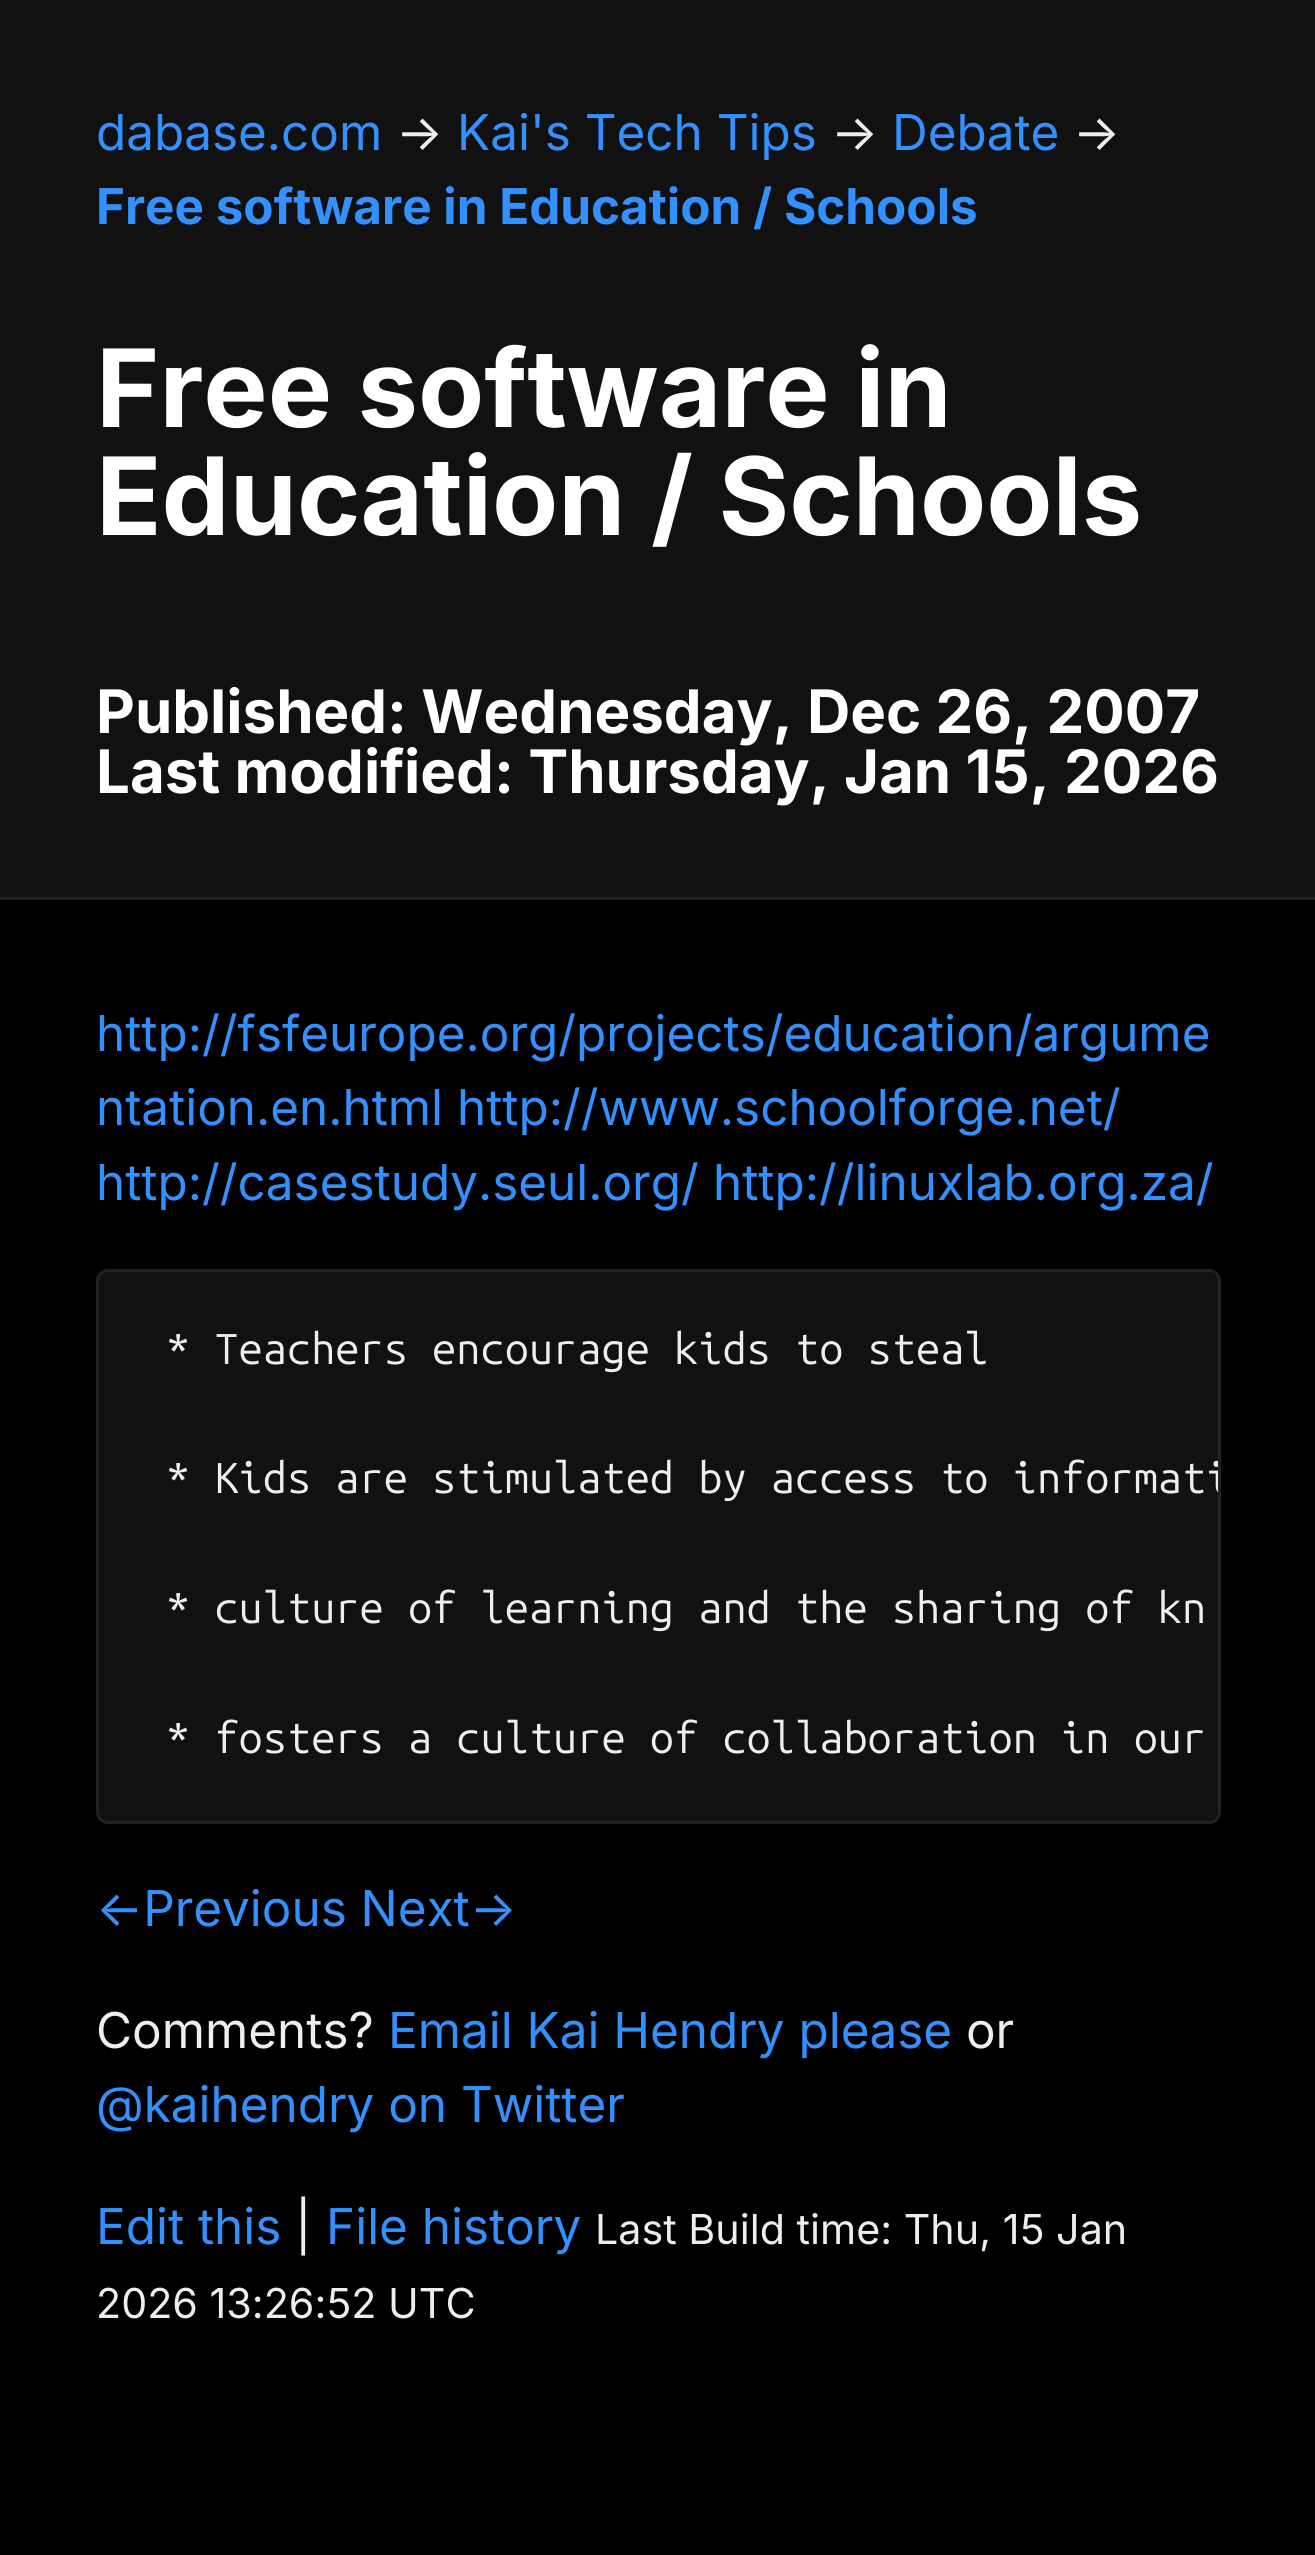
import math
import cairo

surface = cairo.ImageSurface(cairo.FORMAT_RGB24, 1315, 2555)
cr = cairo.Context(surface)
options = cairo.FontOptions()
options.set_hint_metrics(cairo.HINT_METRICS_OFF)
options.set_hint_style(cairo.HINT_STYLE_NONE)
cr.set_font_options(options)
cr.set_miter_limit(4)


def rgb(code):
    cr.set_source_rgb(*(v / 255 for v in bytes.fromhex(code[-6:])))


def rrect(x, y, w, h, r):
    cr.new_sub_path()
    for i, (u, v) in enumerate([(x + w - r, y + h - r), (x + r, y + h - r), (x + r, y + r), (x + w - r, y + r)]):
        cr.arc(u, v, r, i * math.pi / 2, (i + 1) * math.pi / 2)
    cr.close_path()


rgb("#000000")
cr.paint()
rgb("#111111")
cr.rectangle(0, 0, 1315, 897)
cr.fill()
rgb("#222222")
cr.rectangle(0, 897, 1315, 3)
cr.fill()
rgb("#111111")
rrect(97.5, 1270.5, 1122, 552, 10.5)
cr.fill_preserve()
rgb("#222222")
cr.set_line_width(3)
cr.stroke()
cr.select_font_face("Inter")
cr.set_font_size(49.4)
rgb("#3291ff")
cr.move_to(96, 150)
cr.show_text("dabase.com")
rgb("#eeeeee")
cr.move_to(396, 150)
cr.show_text("→")
rgb("#3291ff")
cr.move_to(457, 150)
cr.show_text("Kai's Tech Tips")
rgb("#eeeeee")
cr.move_to(831, 150)
cr.show_text("→")
rgb("#3291ff")
cr.move_to(892, 150)
cr.show_text("Debate")
rgb("#eeeeee")
cr.move_to(1073, 150)
cr.show_text("→")
cr.select_font_face("Inter", cairo.FONT_SLANT_NORMAL, cairo.FONT_WEIGHT_BOLD)
rgb("#3291ff")
cr.move_to(96, 224)
cr.show_text("Free software in Education / Schools")
cr.set_font_size(108)
rgb("#ffffff")
cr.move_to(96, 427)
cr.show_text("Free software in")
cr.move_to(96, 535)
cr.show_text("Education / Schools")
cr.set_font_size(60)
cr.move_to(96, 733)
cr.show_text("Published: Wednesday, Dec 26, 2007")
cr.move_to(96, 793)
cr.show_text("Last modified: Thursday, Jan 15, 2026")
cr.select_font_face("Inter")
cr.set_font_size(49.4)
rgb("#3291ff")
for x, y, s in [
    (96, 1051, "http://fsfeurope.org/projects/education/argume"),
    (96, 1125, "ntation.en.html http://www.schoolforge.net/"),
    (96, 1200, "http://casestudy.seul.org/"),
    (713, 1200, "http://linuxlab.org.za/"),
]:
    cr.move_to(x, y)
    cr.show_text(s)
cr.select_font_face("Ubuntu Mono")
cr.set_font_size(43.2)
rgb("#eeeeee")
cr.move_to(166, 1364)
cr.show_text("* Teachers encourage kids to steal")
cr.save()
rrect(99, 1272, 1119, 549, 9)
cr.clip()
cr.move_to(166, 1493)
cr.show_text("* Kids are stimulated by access to informati")
cr.restore()
cr.move_to(166, 1623)
cr.show_text("* culture of learning and the sharing of kn")
cr.move_to(166, 1753)
cr.show_text("* fosters a culture of collaboration in our")
cr.select_font_face("Inter")
cr.set_font_size(49.4)
rgb("#3291ff")
cr.move_to(96, 1926)
cr.show_text("←Previous Next→")
rgb("#eeeeee")
cr.move_to(96, 2048)
cr.show_text("Comments?")
rgb("#3291ff")
cr.move_to(388, 2048)
cr.show_text("Email Kai Hendry please")
rgb("#eeeeee")
cr.move_to(966, 2048)
cr.show_text("or")
rgb("#3291ff")
cr.move_to(96, 2122)
cr.show_text("@kaihendry on Twitter")
cr.move_to(96, 2244)
cr.show_text("Edit this")
rgb("#eeeeee")
cr.move_to(295, 2244)
cr.show_text("|")
rgb("#3291ff")
cr.move_to(326, 2244)
cr.show_text("File history")
cr.set_font_size(41.25)
rgb("#eeeeee")
cr.move_to(595, 2244)
cr.show_text("Last Build time: Thu, 15 Jan")
cr.move_to(96, 2318)
cr.show_text("2026 13:26:52 UTC")
surface.write_to_png("page.png")
